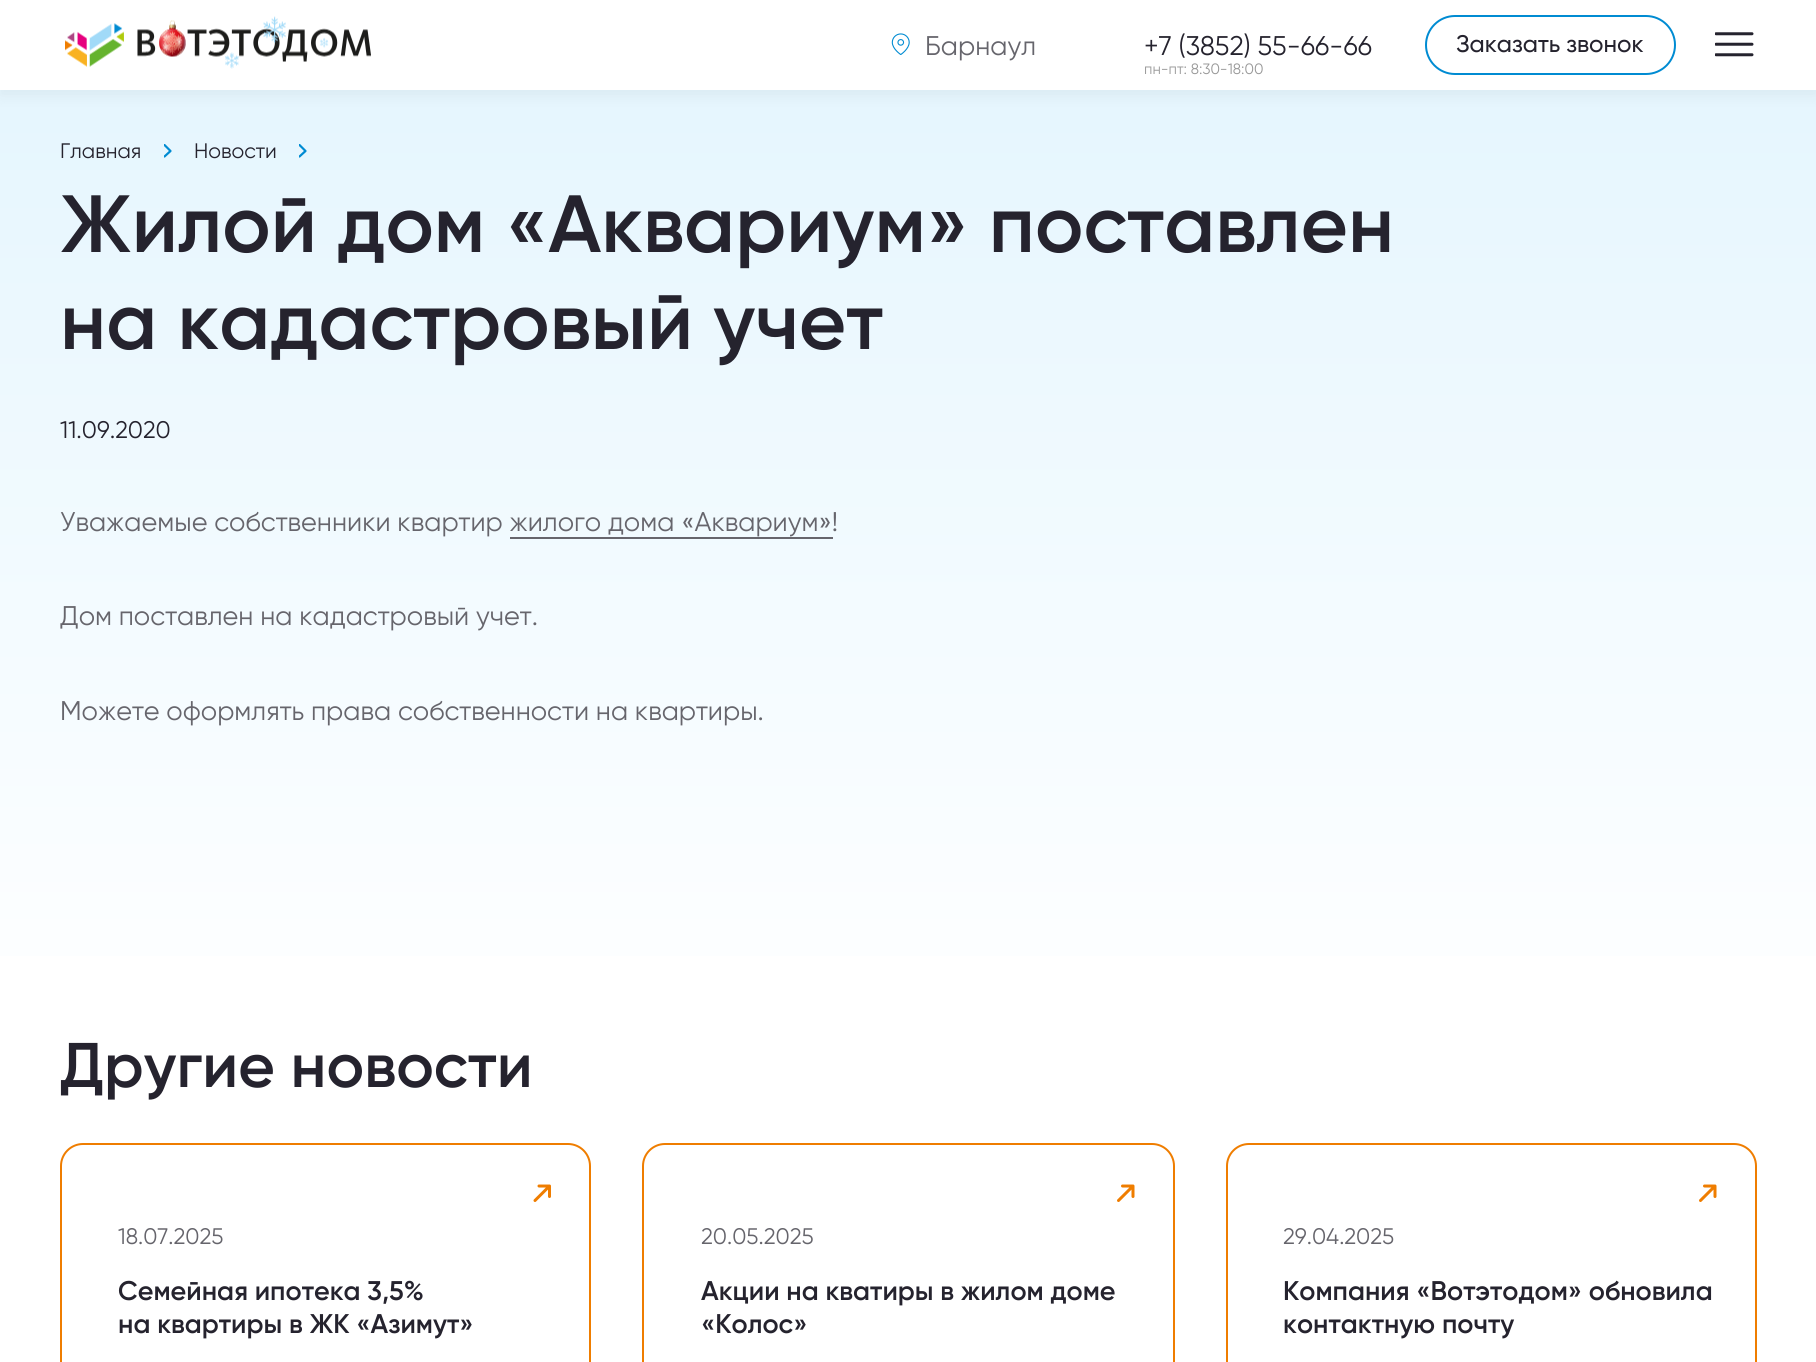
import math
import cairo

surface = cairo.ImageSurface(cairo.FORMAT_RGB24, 1816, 1362)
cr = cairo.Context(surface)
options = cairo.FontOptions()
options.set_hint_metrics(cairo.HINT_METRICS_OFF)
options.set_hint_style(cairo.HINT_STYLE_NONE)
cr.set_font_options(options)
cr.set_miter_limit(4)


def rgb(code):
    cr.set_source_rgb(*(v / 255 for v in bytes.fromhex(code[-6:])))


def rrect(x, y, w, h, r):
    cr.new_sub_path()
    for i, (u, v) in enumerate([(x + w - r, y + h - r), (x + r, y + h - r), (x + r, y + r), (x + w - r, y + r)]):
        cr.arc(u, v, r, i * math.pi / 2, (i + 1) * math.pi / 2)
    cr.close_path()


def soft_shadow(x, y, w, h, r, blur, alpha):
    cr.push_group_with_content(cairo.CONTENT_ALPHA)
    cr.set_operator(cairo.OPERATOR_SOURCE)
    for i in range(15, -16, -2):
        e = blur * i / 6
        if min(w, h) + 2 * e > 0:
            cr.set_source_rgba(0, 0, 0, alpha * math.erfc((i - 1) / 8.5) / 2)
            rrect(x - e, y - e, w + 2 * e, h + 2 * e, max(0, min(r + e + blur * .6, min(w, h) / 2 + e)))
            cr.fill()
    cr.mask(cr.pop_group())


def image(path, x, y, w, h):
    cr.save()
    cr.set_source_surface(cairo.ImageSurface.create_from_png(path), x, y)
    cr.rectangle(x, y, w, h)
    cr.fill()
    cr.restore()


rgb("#ffffff")
cr.paint()
gradient = cairo.LinearGradient(908, 0, 908, 1050)
gradient.add_color_stop_rgba(0, 0.89, 0.961, 0.996, 1)
gradient.add_color_stop_rgba(1, 1, 1, 1, 1)
cr.set_source(gradient)
cr.rectangle(0, 90, 1816, 866)
cr.fill()
rgb("#000000")
soft_shadow(0, 6, 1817, 90, 0, 7.5, 0.05)
rgb("#ffffff")
cr.rectangle(0, 0, 1816, 90)
cr.fill()
image("img/1.png", 65, 16, 306, 53)
image("img/2.png", 891, 33, 19, 22)
rrect(1426, 16, 249, 58, 29)
rgb("#008bd2")
cr.stroke()
image("img/3.png", 1715, 32, 39, 25)
cr.save()
cr.rectangle(164, 144, 9, 14)
cr.clip()
cr.new_path()
cr.move_to(164.5, 145)
cr.line_to(170.5, 151)
cr.line_to(164.5, 156.5)
cr.set_line_width(2.2)
cr.set_line_cap(cairo.LINE_CAP_ROUND)
cr.set_line_join(cairo.LINE_JOIN_ROUND)
cr.stroke()
cr.restore()
cr.save()
cr.rectangle(299, 144, 9, 14)
cr.clip()
cr.new_path()
cr.move_to(299.5, 145)
cr.line_to(305.5, 151)
cr.line_to(299.5, 156.5)
cr.set_line_width(2.2)
cr.set_line_cap(cairo.LINE_CAP_ROUND)
cr.set_line_join(cairo.LINE_JOIN_ROUND)
cr.stroke()
cr.restore()
rgb("#66656c")
cr.rectangle(510, 537, 323, 2)
cr.fill()
rrect(61, 1144, 529, 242, 22)
rgb("#ef7d00")
cr.stroke()
cr.new_path()
cr.move_to(535, 1200.5)
cr.line_to(549.5, 1186)
cr.move_to(549.5, 1186)
cr.line_to(539, 1186)
cr.move_to(549.5, 1186)
cr.line_to(549.5, 1196.5)
cr.set_line_width(3)
cr.set_line_cap(cairo.LINE_CAP_ROUND)
cr.set_line_join(cairo.LINE_JOIN_ROUND)
cr.stroke()
rrect(643, 1144, 531, 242, 22)
cr.set_line_width(2)
cr.set_line_cap(cairo.LINE_CAP_BUTT)
cr.set_line_join(cairo.LINE_JOIN_MITER)
cr.stroke()
cr.new_path()
cr.move_to(1118.5, 1200.5)
cr.line_to(1133, 1186)
cr.move_to(1133, 1186)
cr.line_to(1122.5, 1186)
cr.move_to(1133, 1186)
cr.line_to(1133, 1196.5)
cr.set_line_width(3)
cr.set_line_cap(cairo.LINE_CAP_ROUND)
cr.set_line_join(cairo.LINE_JOIN_ROUND)
cr.stroke()
rrect(1227, 1144, 529, 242, 22)
cr.set_line_width(2)
cr.set_line_cap(cairo.LINE_CAP_BUTT)
cr.set_line_join(cairo.LINE_JOIN_MITER)
cr.stroke()
cr.new_path()
cr.move_to(1700.5, 1200.5)
cr.line_to(1715, 1186)
cr.move_to(1715, 1186)
cr.line_to(1704.5, 1186)
cr.move_to(1715, 1186)
cr.line_to(1715, 1196.5)
cr.set_line_width(3)
cr.set_line_cap(cairo.LINE_CAP_ROUND)
cr.set_line_join(cairo.LINE_JOIN_ROUND)
cr.stroke()
cr.select_font_face("Gilroy")
cr.set_font_size(27)
rgb("#66656c")
cr.move_to(925, 55)
cr.show_text("Барнаул")
rgb("#25232e")
cr.move_to(1144, 55)
cr.show_text("+7 (3852) 55-66-66")
cr.set_font_size(15)
rgb("#999999")
cr.move_to(1144, 74)
cr.show_text("пн-пт: 8:30-18:00")
cr.select_font_face("Gilroy Medium")
cr.set_font_size(24)
rgb("#25232e")
cr.move_to(1456, 52)
cr.show_text("Заказать звонок")
cr.select_font_face("Gilroy")
cr.set_font_size(21)
cr.move_to(60, 158)
cr.show_text("Главная")
cr.move_to(194, 158)
cr.show_text("Новости")
cr.select_font_face("Gilroy SemiBold")
cr.set_font_size(81)
cr.move_to(60, 252)
cr.show_text("Жилой дом «Аквариум» поставлен")
cr.move_to(60, 349)
cr.show_text("на кадастровый учет")
cr.select_font_face("Gilroy")
cr.set_font_size(24)
cr.move_to(60, 438)
cr.show_text("11.09.2020")
cr.set_font_size(27)
rgb("#66656c")
for x, y, s in [
    (60, 531, "Уважаемые собственники квартир жилого дома «Аквариум»!"),
    (60, 625, "Дом поставлен на кадастровый учет."),
    (60, 720, "Можете оформлять права собственности на квартиры."),
]:
    cr.move_to(x, y)
    cr.show_text(s)
cr.select_font_face("Gilroy SemiBold")
cr.set_font_size(63)
rgb("#25232e")
cr.move_to(60, 1087)
cr.show_text("Другие новости")
cr.select_font_face("Gilroy")
cr.set_font_size(22.5)
rgb("#66656c")
cr.move_to(118, 1244)
cr.show_text("18.07.2025")
cr.select_font_face("Gilroy SemiBold")
cr.set_font_size(27)
rgb("#25232e")
cr.move_to(118, 1300)
cr.show_text("Семейная ипотека 3,5%")
cr.move_to(118, 1333)
cr.show_text("на квартиры в ЖК «Азимут»")
cr.select_font_face("Gilroy")
cr.set_font_size(22.5)
rgb("#66656c")
cr.move_to(701, 1244)
cr.show_text("20.05.2025")
cr.select_font_face("Gilroy SemiBold")
cr.set_font_size(27)
rgb("#25232e")
cr.move_to(701, 1300)
cr.show_text("Акции на кватиры в жилом доме")
cr.move_to(701, 1333)
cr.show_text("«Колос»")
cr.select_font_face("Gilroy")
cr.set_font_size(22.5)
rgb("#66656c")
cr.move_to(1283, 1244)
cr.show_text("29.04.2025")
cr.select_font_face("Gilroy SemiBold")
cr.set_font_size(27)
rgb("#25232e")
cr.move_to(1283, 1300)
cr.show_text("Компания «Вотэтодом» обновила")
cr.move_to(1283, 1333)
cr.show_text("контактную почту")
surface.write_to_png("page.png")
